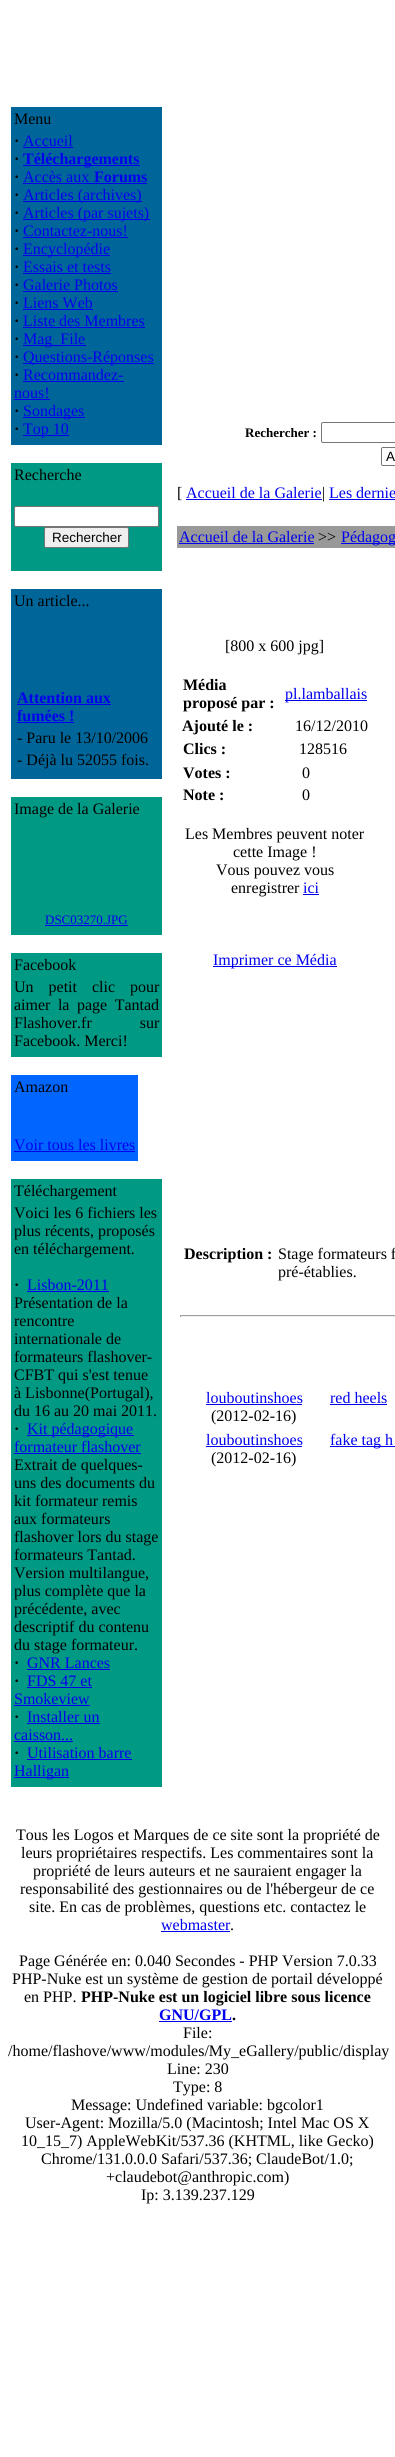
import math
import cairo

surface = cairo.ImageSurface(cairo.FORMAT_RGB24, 395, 2457)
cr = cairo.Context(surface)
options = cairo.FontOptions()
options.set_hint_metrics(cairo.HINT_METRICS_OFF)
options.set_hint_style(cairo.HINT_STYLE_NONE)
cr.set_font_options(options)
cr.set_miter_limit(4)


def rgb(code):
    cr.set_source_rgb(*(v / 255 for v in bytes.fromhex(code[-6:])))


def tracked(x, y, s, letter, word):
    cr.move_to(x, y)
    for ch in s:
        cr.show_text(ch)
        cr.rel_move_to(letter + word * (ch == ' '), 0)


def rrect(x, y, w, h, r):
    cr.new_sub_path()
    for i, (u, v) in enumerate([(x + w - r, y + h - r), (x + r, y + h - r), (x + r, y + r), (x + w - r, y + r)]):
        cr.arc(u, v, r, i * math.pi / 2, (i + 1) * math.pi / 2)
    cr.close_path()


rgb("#ffffff")
cr.paint()
for x, y, w, h, color in [
    (11, 107, 151, 338, "#006699"),
    (23, 147, 50, 1, "#0000ee"),
    (23, 165, 117, 1, "#0000ee"),
    (23, 183, 124, 1, "#0000ee"),
    (23, 201, 119, 1, "#0000ee"),
    (23, 219, 127, 1, "#0000ee"),
    (23, 237, 105, 1, "#0000ee"),
    (23, 255, 87, 1, "#0000ee"),
    (23, 273, 88, 1, "#0000ee"),
    (23, 291, 95, 1, "#0000ee"),
    (23, 309, 70, 1, "#0000ee"),
    (23, 327, 122, 1, "#0000ee"),
    (23, 345, 63, 1, "#0000ee"),
    (23, 363, 131, 1, "#0000ee"),
    (23, 381, 101, 1, "#0000ee"),
    (14, 399, 36, 1, "#0000ee"),
    (23, 417, 62, 1, "#0000ee"),
    (23, 435, 46, 1, "#0000ee"),
    (11, 463, 151, 108, "#009983"),
]:
    rgb(color)
    cr.rectangle(x, y, w, h)
    cr.fill()
rgb("#ffffff")
rrect(14.5, 506.5, 144, 20, 1.5)
cr.fill_preserve()
rgb("#767676")
cr.set_line_width(1)
cr.stroke()
rgb("#efefef")
rrect(44.5, 527.5, 84, 20, 1.5)
cr.fill_preserve()
rgb("#767676")
cr.stroke()
for x, y, w, h, color in [
    (11, 589, 151, 190, "#006699"),
    (17, 704, 94, 1, "#0000ee"),
    (17, 722, 57, 1, "#0000ee"),
    (11, 797, 151, 138, "#009983"),
    (45, 925, 83, 1, "#0000ee"),
    (11, 953, 151, 104, "#009983"),
    (11, 1075, 127, 86, "#0066ff"),
    (14, 1151, 121, 1, "#0000ee"),
    (11, 1179, 151, 608, "#009983"),
    (27, 1291, 82, 1, "#0000ee"),
    (27, 1435, 107, 1, "#0000ee"),
    (14, 1453, 127, 1, "#0000ee"),
    (27, 1669, 83, 1, "#0000ee"),
    (27, 1687, 65, 1, "#0000ee"),
    (14, 1705, 76, 1, "#0000ee"),
    (27, 1723, 73, 1, "#0000ee"),
    (14, 1741, 59, 1, "#0000ee"),
    (27, 1759, 105, 1, "#0000ee"),
    (14, 1777, 55, 1, "#0000ee"),
]:
    rgb(color)
    cr.rectangle(x, y, w, h)
    cr.fill()
rrect(321.5, 422.5, 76, 20, 1.5)
rgb("#767676")
cr.stroke()
rrect(381.5, 447.5, 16, 18, 1.5)
cr.stroke()
for x, y, w, h, color in [
    (186, 499, 136, 1, "#0000ee"),
    (329, 499, 66, 1, "#0000ee"),
    (177, 526, 218, 22, "#999999"),
    (179, 543, 135, 1, "#0000ee"),
    (341, 543, 54, 1, "#0000ee"),
    (285, 700, 82, 1, "#0000ee"),
    (303, 894, 16, 1, "#0000ee"),
    (213, 966, 124, 1, "#0000ee"),
    (180, 1315, 215, 1, "#9f9f9f"),
    (180, 1316, 215, 1, "#eeeeee"),
    (180, 1315, 1, 2, "#9f9f9f"),
    (206, 1404, 96, 1, "#0000ee"),
    (330, 1404, 57, 1, "#0000ee"),
    (206, 1446, 96, 1, "#0000ee"),
    (330, 1446, 65, 1, "#0000ee"),
    (161, 1931, 69, 1, "#0000ee"),
    (159, 2021, 73, 1, "#0000ee"),
]:
    rgb(color)
    cr.rectangle(x, y, w, h)
    cr.fill()
cr.select_font_face("Liberation Serif")
cr.set_font_size(16)
rgb("#000000")
cr.move_to(14, 124)
cr.show_text("Menu")
cr.select_font_face("Liberation Serif", cairo.FONT_SLANT_NORMAL, cairo.FONT_WEIGHT_BOLD)
cr.move_to(14, 146)
cr.show_text("·")
cr.select_font_face("Liberation Serif")
rgb("#0000ee")
cr.move_to(23, 146)
cr.show_text("Accueil")
cr.select_font_face("Liberation Serif", cairo.FONT_SLANT_NORMAL, cairo.FONT_WEIGHT_BOLD)
rgb("#000000")
cr.move_to(14, 164)
cr.show_text("·")
rgb("#0000ee")
cr.move_to(23, 164)
cr.show_text("Téléchargements")
rgb("#000000")
cr.move_to(14, 182)
cr.show_text("·")
cr.select_font_face("Liberation Serif")
rgb("#0000ee")
cr.move_to(23, 182)
cr.show_text("Accès aux")
cr.select_font_face("Liberation Serif", cairo.FONT_SLANT_NORMAL, cairo.FONT_WEIGHT_BOLD)
cr.move_to(94, 182)
cr.show_text("Forums")
rgb("#000000")
cr.move_to(14, 200)
cr.show_text("·")
cr.select_font_face("Liberation Serif")
rgb("#0000ee")
cr.move_to(23, 200)
cr.show_text("Articles (archives)")
cr.select_font_face("Liberation Serif", cairo.FONT_SLANT_NORMAL, cairo.FONT_WEIGHT_BOLD)
rgb("#000000")
cr.move_to(14, 218)
cr.show_text("·")
cr.select_font_face("Liberation Serif")
rgb("#0000ee")
cr.move_to(23, 218)
cr.show_text("Articles (par sujets)")
cr.select_font_face("Liberation Serif", cairo.FONT_SLANT_NORMAL, cairo.FONT_WEIGHT_BOLD)
rgb("#000000")
cr.move_to(14, 236)
cr.show_text("·")
cr.select_font_face("Liberation Serif")
rgb("#0000ee")
cr.move_to(23, 236)
cr.show_text("Contactez-nous!")
cr.select_font_face("Liberation Serif", cairo.FONT_SLANT_NORMAL, cairo.FONT_WEIGHT_BOLD)
rgb("#000000")
cr.move_to(14, 254)
cr.show_text("·")
cr.select_font_face("Liberation Serif")
rgb("#0000ee")
cr.move_to(23, 254)
cr.show_text("Encyclopédie")
cr.select_font_face("Liberation Serif", cairo.FONT_SLANT_NORMAL, cairo.FONT_WEIGHT_BOLD)
rgb("#000000")
cr.move_to(14, 272)
cr.show_text("·")
cr.select_font_face("Liberation Serif")
rgb("#0000ee")
cr.move_to(23, 272)
cr.show_text("Essais et tests")
cr.select_font_face("Liberation Serif", cairo.FONT_SLANT_NORMAL, cairo.FONT_WEIGHT_BOLD)
rgb("#000000")
cr.move_to(14, 290)
cr.show_text("·")
cr.select_font_face("Liberation Serif")
rgb("#0000ee")
cr.move_to(23, 290)
cr.show_text("Galerie Photos")
cr.select_font_face("Liberation Serif", cairo.FONT_SLANT_NORMAL, cairo.FONT_WEIGHT_BOLD)
rgb("#000000")
cr.move_to(14, 308)
cr.show_text("·")
cr.select_font_face("Liberation Serif")
rgb("#0000ee")
cr.move_to(23, 308)
cr.show_text("Liens Web")
cr.select_font_face("Liberation Serif", cairo.FONT_SLANT_NORMAL, cairo.FONT_WEIGHT_BOLD)
rgb("#000000")
cr.move_to(14, 326)
cr.show_text("·")
cr.select_font_face("Liberation Serif")
rgb("#0000ee")
cr.move_to(23, 326)
cr.show_text("Liste des Membres")
cr.select_font_face("Liberation Serif", cairo.FONT_SLANT_NORMAL, cairo.FONT_WEIGHT_BOLD)
rgb("#000000")
cr.move_to(14, 344)
cr.show_text("·")
cr.select_font_face("Liberation Serif")
rgb("#0000ee")
cr.move_to(23, 344)
cr.show_text("Mag_File")
cr.select_font_face("Liberation Serif", cairo.FONT_SLANT_NORMAL, cairo.FONT_WEIGHT_BOLD)
rgb("#000000")
cr.move_to(14, 362)
cr.show_text("·")
cr.select_font_face("Liberation Serif")
rgb("#0000ee")
cr.move_to(23, 362)
cr.show_text("Questions-Réponses")
cr.select_font_face("Liberation Serif", cairo.FONT_SLANT_NORMAL, cairo.FONT_WEIGHT_BOLD)
rgb("#000000")
cr.move_to(14, 380)
cr.show_text("·")
cr.select_font_face("Liberation Serif")
rgb("#0000ee")
cr.move_to(23, 380)
cr.show_text("Recommandez-")
cr.move_to(14, 398)
cr.show_text("nous!")
cr.select_font_face("Liberation Serif", cairo.FONT_SLANT_NORMAL, cairo.FONT_WEIGHT_BOLD)
rgb("#000000")
cr.move_to(14, 416)
cr.show_text("·")
cr.select_font_face("Liberation Serif")
rgb("#0000ee")
cr.move_to(23, 416)
cr.show_text("Sondages")
cr.select_font_face("Liberation Serif", cairo.FONT_SLANT_NORMAL, cairo.FONT_WEIGHT_BOLD)
rgb("#000000")
cr.move_to(14, 434)
cr.show_text("·")
cr.select_font_face("Liberation Serif")
rgb("#0000ee")
cr.move_to(23, 434)
cr.show_text("Top 10")
rgb("#000000")
cr.move_to(14, 480)
cr.show_text("Recherche")
cr.select_font_face("Liberation Sans")
cr.set_font_size(13.5)
cr.move_to(52, 542)
cr.show_text("Rechercher")
cr.select_font_face("Liberation Serif")
cr.set_font_size(16)
cr.move_to(14, 606)
cr.show_text("Un article...")
cr.select_font_face("Liberation Serif", cairo.FONT_SLANT_NORMAL, cairo.FONT_WEIGHT_BOLD)
rgb("#0000ee")
cr.move_to(17, 703)
cr.show_text("Attention aux")
cr.move_to(17, 721)
cr.show_text("fumées !")
cr.select_font_face("Liberation Serif")
rgb("#000000")
for x, y, s in [
    (17, 743, "- Paru le 13/10/2006"),
    (17, 765, "- Déjà lu 52055 fois."),
    (14, 814, "Image de la Galerie"),
]:
    cr.move_to(x, y)
    cr.show_text(s)
cr.set_font_size(13)
rgb("#0000ee")
cr.move_to(45, 924)
cr.show_text("DSC03270.JPG")
cr.set_font_size(16)
rgb("#000000")
cr.move_to(14, 970)
cr.show_text("Facebook")
tracked(14, 992, "Un petit clic pour", 0, 11)
tracked(14, 1010, "aimer la page Tantad", 0, 3.5)
tracked(14, 1028, "Flashover.fr sur", 0, 44)
cr.move_to(14, 1046)
cr.show_text("Facebook. Merci!")
cr.move_to(14, 1092)
cr.show_text("Amazon")
rgb("#0000ee")
cr.move_to(14, 1150)
cr.show_text("Voir tous les livres")
rgb("#000000")
for x, y, s in [
    (14, 1196, "Téléchargement"),
    (14, 1218, "Voici les 6 fichiers les"),
    (14, 1236, "plus récents, proposés"),
    (14, 1254, "en téléchargement."),
]:
    cr.move_to(x, y)
    cr.show_text(s)
cr.select_font_face("Liberation Serif", cairo.FONT_SLANT_NORMAL, cairo.FONT_WEIGHT_BOLD)
cr.move_to(14, 1290)
cr.show_text("·")
cr.select_font_face("Liberation Serif")
rgb("#0000ee")
cr.move_to(27, 1290)
cr.show_text("Lisbon-2011")
rgb("#000000")
for x, y, s in [
    (14, 1308, "Présentation de la"),
    (14, 1326, "rencontre"),
    (14, 1344, "internationale de"),
    (14, 1362, "formateurs flashover-"),
    (14, 1380, "CFBT qui s'est tenue"),
    (14, 1398, "à Lisbonne(Portugal),"),
    (14, 1416, "du 16 au 20 mai 2011."),
]:
    cr.move_to(x, y)
    cr.show_text(s)
cr.select_font_face("Liberation Serif", cairo.FONT_SLANT_NORMAL, cairo.FONT_WEIGHT_BOLD)
cr.move_to(14, 1434)
cr.show_text("·")
cr.select_font_face("Liberation Serif")
rgb("#0000ee")
cr.move_to(27, 1434)
cr.show_text("Kit pédagogique")
cr.move_to(14, 1452)
cr.show_text("formateur flashover")
rgb("#000000")
for x, y, s in [
    (14, 1470, "Extrait de quelques-"),
    (14, 1488, "uns des documents du"),
    (14, 1506, "kit formateur remis"),
    (14, 1524, "aux formateurs"),
    (14, 1542, "flashover lors du stage"),
    (14, 1560, "formateurs Tantad."),
    (14, 1578, "Version multilangue,"),
    (14, 1596, "plus complète que la"),
    (14, 1614, "précédente, avec"),
    (14, 1632, "descriptif du contenu"),
    (14, 1650, "du stage formateur."),
]:
    cr.move_to(x, y)
    cr.show_text(s)
cr.select_font_face("Liberation Serif", cairo.FONT_SLANT_NORMAL, cairo.FONT_WEIGHT_BOLD)
cr.move_to(14, 1668)
cr.show_text("·")
cr.select_font_face("Liberation Serif")
rgb("#0000ee")
cr.move_to(27, 1668)
cr.show_text("GNR Lances")
cr.select_font_face("Liberation Serif", cairo.FONT_SLANT_NORMAL, cairo.FONT_WEIGHT_BOLD)
rgb("#000000")
cr.move_to(14, 1686)
cr.show_text("·")
cr.select_font_face("Liberation Serif")
rgb("#0000ee")
cr.move_to(27, 1686)
cr.show_text("FDS 47 et")
cr.move_to(14, 1704)
cr.show_text("Smokeview")
cr.select_font_face("Liberation Serif", cairo.FONT_SLANT_NORMAL, cairo.FONT_WEIGHT_BOLD)
rgb("#000000")
cr.move_to(14, 1722)
cr.show_text("·")
cr.select_font_face("Liberation Serif")
rgb("#0000ee")
cr.move_to(27, 1722)
cr.show_text("Installer un")
cr.move_to(14, 1740)
cr.show_text("caisson...")
cr.select_font_face("Liberation Serif", cairo.FONT_SLANT_NORMAL, cairo.FONT_WEIGHT_BOLD)
rgb("#000000")
cr.move_to(14, 1758)
cr.show_text("·")
cr.select_font_face("Liberation Serif")
rgb("#0000ee")
cr.move_to(27, 1758)
cr.show_text("Utilisation barre")
cr.move_to(14, 1776)
cr.show_text("Halligan")
cr.select_font_face("Liberation Serif", cairo.FONT_SLANT_NORMAL, cairo.FONT_WEIGHT_BOLD)
cr.set_font_size(13)
rgb("#000000")
cr.move_to(245, 437)
cr.show_text("Rechercher :")
cr.select_font_face("Liberation Sans")
cr.set_font_size(13.5)
cr.move_to(386, 461)
cr.show_text("A")
cr.select_font_face("Liberation Serif")
cr.set_font_size(16)
cr.move_to(177, 498)
cr.show_text("[")
rgb("#0000ee")
cr.move_to(186, 498)
cr.show_text("Accueil de la Galerie")
rgb("#000000")
cr.move_to(322, 498)
cr.show_text("|")
rgb("#0000ee")
cr.move_to(329, 498)
cr.show_text("Les dernie")
cr.move_to(179, 542)
cr.show_text("Accueil de la Galerie")
rgb("#000000")
cr.move_to(318, 542)
cr.show_text(">>")
rgb("#0000ee")
cr.move_to(341, 542)
cr.show_text("Pédagog")
rgb("#000000")
cr.move_to(225, 651)
cr.show_text("[800 x 600 jpg]")
cr.select_font_face("Liberation Serif", cairo.FONT_SLANT_NORMAL, cairo.FONT_WEIGHT_BOLD)
cr.move_to(183, 690)
cr.show_text("Média")
cr.move_to(183, 708)
cr.show_text("proposé par :")
cr.select_font_face("Liberation Serif")
rgb("#0000ee")
cr.move_to(285, 699)
cr.show_text("pl.lamballais")
cr.select_font_face("Liberation Serif", cairo.FONT_SLANT_NORMAL, cairo.FONT_WEIGHT_BOLD)
rgb("#000000")
cr.move_to(182, 731)
cr.show_text("Ajouté le :")
cr.select_font_face("Liberation Serif")
cr.move_to(295, 731)
cr.show_text("16/12/2010")
cr.select_font_face("Liberation Serif", cairo.FONT_SLANT_NORMAL, cairo.FONT_WEIGHT_BOLD)
cr.move_to(183, 754)
cr.show_text("Clics :")
cr.select_font_face("Liberation Serif")
cr.move_to(299, 754)
cr.show_text("128516")
cr.select_font_face("Liberation Serif", cairo.FONT_SLANT_NORMAL, cairo.FONT_WEIGHT_BOLD)
cr.move_to(183, 778)
cr.show_text("Votes :")
cr.select_font_face("Liberation Serif")
cr.move_to(302, 778)
cr.show_text("0")
cr.select_font_face("Liberation Serif", cairo.FONT_SLANT_NORMAL, cairo.FONT_WEIGHT_BOLD)
cr.move_to(183, 800)
cr.show_text("Note :")
cr.select_font_face("Liberation Serif")
for x, y, s in [
    (302, 800, "0"),
    (185, 839, "Les Membres peuvent noter"),
    (233, 857, "cette Image !"),
    (216, 875, "Vous pouvez vous"),
    (231, 893, "enregistrer"),
]:
    cr.move_to(x, y)
    cr.show_text(s)
rgb("#0000ee")
cr.move_to(303, 893)
cr.show_text("ici")
cr.move_to(213, 965)
cr.show_text("Imprimer ce Média")
cr.select_font_face("Liberation Serif", cairo.FONT_SLANT_NORMAL, cairo.FONT_WEIGHT_BOLD)
rgb("#000000")
cr.move_to(184, 1259)
cr.show_text("Description :")
cr.select_font_face("Liberation Serif")
cr.move_to(278, 1259)
cr.show_text("Stage formateurs f")
cr.move_to(278, 1277)
cr.show_text("pré-établies.")
rgb("#0000ee")
cr.move_to(206, 1403)
cr.show_text("louboutinshoes")
rgb("#000000")
cr.move_to(211, 1421)
cr.show_text("(2012-02-16)")
rgb("#0000ee")
cr.move_to(330, 1403)
cr.show_text("red heels")
cr.move_to(206, 1445)
cr.show_text("louboutinshoes")
rgb("#000000")
cr.move_to(211, 1463)
cr.show_text("(2012-02-16)")
rgb("#0000ee")
cr.move_to(330, 1445)
cr.show_text("fake tag h")
rgb("#000000")
for x, y, s in [
    (16, 1840, "Tous les Logos et Marques de ce site sont la propriété de"),
    (21, 1858, "leurs propriétaires respectifs. Les commentaires sont la"),
    (33, 1876, "propriété de leurs auteurs et ne sauraient engager la"),
    (20, 1894, "responsabilité des gestionnaires ou de l'hébergeur de ce"),
    (29, 1912, "site. En cas de problèmes, questions etc. contactez le"),
]:
    cr.move_to(x, y)
    cr.show_text(s)
rgb("#0000ee")
cr.move_to(161, 1930)
cr.show_text("webmaster")
rgb("#000000")
for x, y, s in [
    (230, 1930, "."),
    (19, 1966, "Page Générée en: 0.040 Secondes - PHP Version 7.0.33"),
    (12, 1984, "PHP-Nuke est un système de gestion de portail développé"),
    (24, 2002, "en PHP."),
]:
    cr.move_to(x, y)
    cr.show_text(s)
cr.select_font_face("Liberation Serif", cairo.FONT_SLANT_NORMAL, cairo.FONT_WEIGHT_BOLD)
cr.move_to(81, 2002)
cr.show_text("PHP-Nuke est un logiciel libre sous licence")
rgb("#0000ee")
cr.move_to(159, 2020)
cr.show_text("GNU/GPL")
rgb("#000000")
cr.move_to(232, 2020)
cr.show_text(".")
cr.select_font_face("Liberation Serif")
for x, y, s in [
    (183, 2038, "File:"),
    (8, 2056, "/home/flashove/www/modules/My_eGallery/public/display"),
    (167, 2074, "Line: 230"),
    (173, 2092, "Type: 8"),
    (71, 2110, "Message: Undefined variable: bgcolor1"),
    (25, 2128, "User-Agent: Mozilla/5.0 (Macintosh; Intel Mac OS X"),
    (21, 2146, "10_15_7) AppleWebKit/537.36 (KHTML, like Gecko)"),
    (41, 2164, "Chrome/131.0.0.0 Safari/537.36; ClaudeBot/1.0;"),
    (106, 2182, "+claudebot@anthropic.com)"),
    (141, 2200, "Ip: 3.139.237.129"),
]:
    cr.move_to(x, y)
    cr.show_text(s)
surface.write_to_png("page.png")
